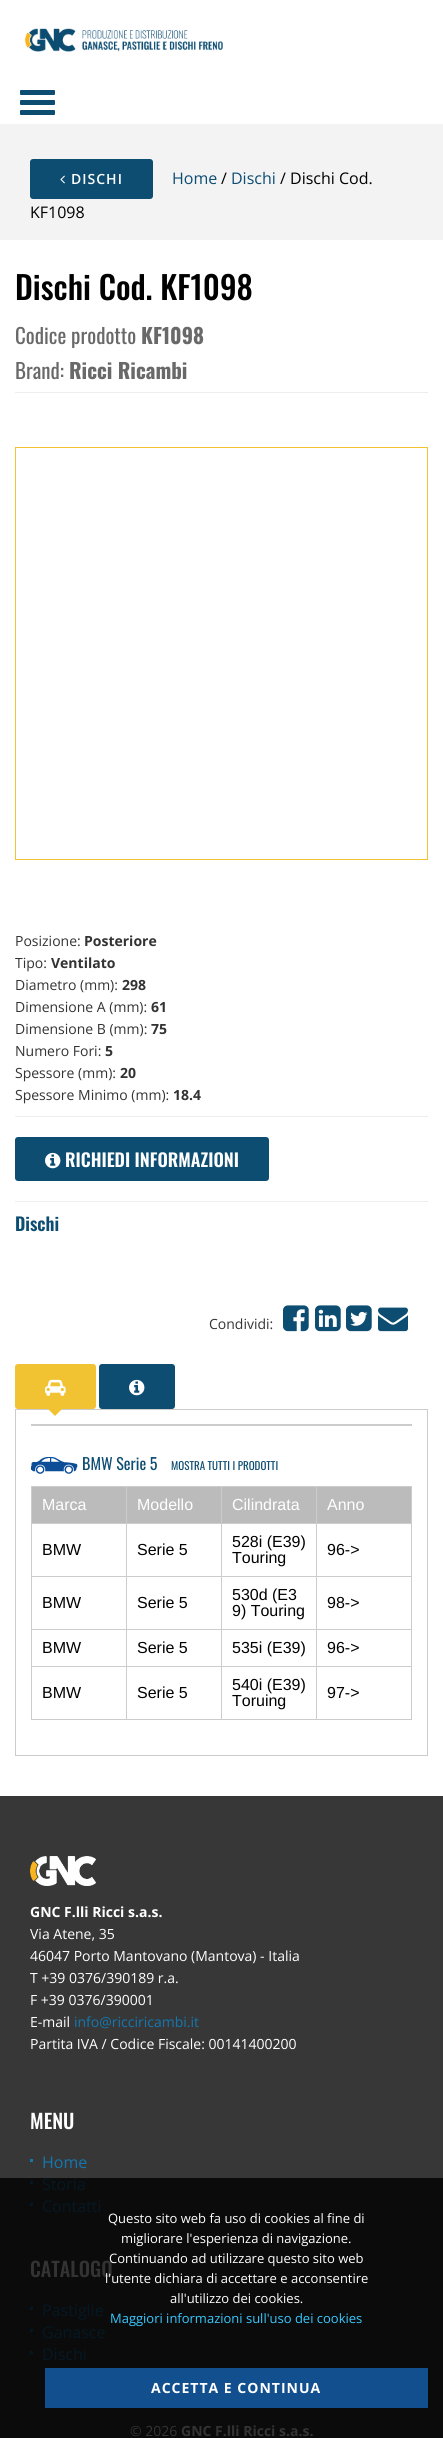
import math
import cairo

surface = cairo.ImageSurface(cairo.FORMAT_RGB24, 443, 2438)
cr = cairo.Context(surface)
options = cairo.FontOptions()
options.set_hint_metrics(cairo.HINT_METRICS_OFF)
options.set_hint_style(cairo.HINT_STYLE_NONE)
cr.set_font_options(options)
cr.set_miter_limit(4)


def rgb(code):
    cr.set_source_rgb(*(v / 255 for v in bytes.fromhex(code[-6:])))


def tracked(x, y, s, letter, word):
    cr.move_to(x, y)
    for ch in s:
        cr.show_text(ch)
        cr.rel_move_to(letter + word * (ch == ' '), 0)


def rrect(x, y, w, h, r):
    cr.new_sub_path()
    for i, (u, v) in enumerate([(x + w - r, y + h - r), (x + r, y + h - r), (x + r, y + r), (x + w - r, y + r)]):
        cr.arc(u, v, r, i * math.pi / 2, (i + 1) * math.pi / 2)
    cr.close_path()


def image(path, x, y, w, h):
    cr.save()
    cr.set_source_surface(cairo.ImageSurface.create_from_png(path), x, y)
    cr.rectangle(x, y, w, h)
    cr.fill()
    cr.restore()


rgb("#ffffff")
cr.paint()
image("img/1.png", 25, 28, 198, 24)
rgb("#0d4d72")
rrect(20, 100, 35, 5, 1)
cr.fill()
rrect(20, 90, 35, 5, 1)
cr.fill()
rrect(20, 110, 35, 5, 1)
cr.fill()
rgb("#f3f3f3")
cr.rectangle(0, 124, 443, 116)
cr.fill()
rgb("#0d4d72")
rrect(30, 159, 123, 40, 3)
cr.fill()
image("img/2.png", 60, 175, 5, 9)
rgb("#eeeeee")
cr.rectangle(15, 392, 413, 1)
cr.fill()
cr.rectangle(15.5, 447.5, 412, 412)
rgb("#f1c232")
cr.set_line_width(1)
cr.stroke()
rgb("#eeeeee")
cr.rectangle(15, 1116, 413, 1)
cr.fill()
rgb("#0d4d72")
rrect(15, 1137, 254, 44, 3)
cr.fill()
image("img/3.png", 45, 1152, 16, 17)
rgb("#eeeeee")
cr.rectangle(15, 1201, 413, 1)
cr.fill()
image("img/4.png", 283, 1305, 26, 27)
image("img/5.png", 315, 1305, 26, 27)
image("img/6.png", 346, 1305, 26, 27)
image("img/7.png", 378, 1307, 30, 25)
rgb("#f1c232")
rrect(15, 1364, 81, 45, 3)
cr.fill()
image("img/8.png", 45, 1379, 21, 17)
cr.rectangle(15.5, 1409.5, 412, 346)
rgb("#cccccc")
cr.stroke()
rgb("#f1c232")
cr.new_path()
cr.move_to(48, 1409)
cr.line_to(62, 1409)
cr.line_to(55, 1416)
cr.close_path()
cr.fill()
rgb("#0d4d72")
rrect(99, 1364, 76, 45, 3)
cr.fill()
image("img/3.png", 129, 1379, 16, 17)
rgb("#cccccc")
cr.rectangle(31, 1424, 381, 2)
cr.fill()
image("img/9.png", 31, 1457, 47, 17)
for x, y, w, h, color in [
    (31, 1486, 381, 1, "#cccccc"),
    (411, 1486, 1, 234, "#cccccc"),
    (31, 1719, 381, 1, "#cccccc"),
    (31, 1486, 1, 234, "#cccccc"),
    (32, 1487, 379, 36, "#bbbbbb"),
    (316, 1523, 96, 1, "#cccccc"),
    (316, 1576, 96, 1, "#cccccc"),
    (316, 1629, 96, 1, "#cccccc"),
    (316, 1666, 96, 1, "#cccccc"),
    (316, 1666, 1, 54, "#cccccc"),
    (221, 1666, 96, 1, "#cccccc"),
    (316, 1629, 1, 38, "#cccccc"),
    (221, 1629, 96, 1, "#cccccc"),
    (316, 1576, 1, 54, "#cccccc"),
    (221, 1576, 96, 1, "#cccccc"),
    (316, 1523, 1, 54, "#cccccc"),
    (221, 1523, 96, 1, "#cccccc"),
    (221, 1666, 1, 54, "#cccccc"),
    (126, 1666, 96, 1, "#cccccc"),
    (221, 1629, 1, 38, "#cccccc"),
    (126, 1629, 96, 1, "#cccccc"),
    (221, 1576, 1, 54, "#cccccc"),
    (126, 1576, 96, 1, "#cccccc"),
    (221, 1523, 1, 54, "#cccccc"),
    (126, 1523, 96, 1, "#cccccc"),
    (126, 1666, 1, 54, "#cccccc"),
    (31, 1666, 96, 1, "#cccccc"),
    (126, 1629, 1, 38, "#cccccc"),
    (31, 1629, 96, 1, "#cccccc"),
    (126, 1576, 1, 54, "#cccccc"),
    (31, 1576, 96, 1, "#cccccc"),
    (126, 1523, 1, 54, "#cccccc"),
    (31, 1523, 96, 1, "#cccccc"),
    (126, 1486, 1, 38, "#cccccc"),
    (221, 1486, 1, 38, "#cccccc"),
    (316, 1486, 1, 38, "#cccccc"),
    (0, 1796, 443, 382, "#373737"),
    (0, 2178, 443, 260, "#0b0b0b"),
]:
    rgb(color)
    cr.rectangle(x, y, w, h)
    cr.fill()
image("img/10.png", 30, 1856, 66, 30)
for x, y, w, h, color in [
    (30, 2159, 3, 3, "#1477b0"),
    (30, 2181, 3, 3, "#041823"),
    (30, 2203, 3, 3, "#041823"),
    (30, 2307, 3, 3, "#041823"),
    (30, 2329, 3, 3, "#041823"),
    (30, 2351, 3, 3, "#041823"),
    (45, 2368, 383, 40, "#124f8e"),
]:
    rgb(color)
    cr.rectangle(x, y, w, h)
    cr.fill()
cr.select_font_face("Open Sans SemiBold")
cr.set_font_size(14)
rgb("#ffffff")
tracked(71, 184, "DISCHI", 1, 0)
cr.select_font_face("Open Sans")
cr.set_font_size(16)
rgb("#0d4d72")
cr.move_to(172, 184)
cr.show_text("Home")
rgb("#000000")
cr.move_to(221, 184)
cr.show_text("/")
rgb("#0d4d72")
cr.move_to(231, 184)
cr.show_text("Dischi")
rgb("#000000")
cr.move_to(280, 184)
cr.show_text("/ Dischi Cod.")
cr.move_to(30, 218)
cr.show_text("KF1098")
cr.select_font_face("Oswald Medium")
cr.set_font_size(32)
cr.move_to(15, 300)
cr.show_text("Dischi Cod. KF1098")
cr.select_font_face("Oswald")
cr.set_font_size(21)
rgb("#696969")
cr.move_to(15, 344)
cr.show_text("Codice prodotto")
cr.select_font_face("Oswald", cairo.FONT_SLANT_NORMAL, cairo.FONT_WEIGHT_BOLD)
cr.move_to(141, 344)
cr.show_text("KF1098")
cr.select_font_face("Oswald")
cr.move_to(15, 379)
cr.show_text("Brand:")
cr.select_font_face("Oswald", cairo.FONT_SLANT_NORMAL, cairo.FONT_WEIGHT_BOLD)
cr.move_to(69, 379)
cr.show_text("Ricci Ricambi")
cr.select_font_face("Open Sans")
cr.set_font_size(14)
rgb("#333333")
cr.move_to(15, 946)
cr.show_text("Posizione:")
cr.select_font_face("Open Sans", cairo.FONT_SLANT_NORMAL, cairo.FONT_WEIGHT_BOLD)
cr.move_to(84, 946)
cr.show_text("Posteriore")
cr.select_font_face("Open Sans")
cr.move_to(15, 968)
cr.show_text("Tipo:")
cr.select_font_face("Open Sans", cairo.FONT_SLANT_NORMAL, cairo.FONT_WEIGHT_BOLD)
cr.move_to(51, 968)
cr.show_text("Ventilato")
cr.select_font_face("Open Sans")
cr.move_to(15, 990)
cr.show_text("Diametro (mm):")
cr.select_font_face("Open Sans", cairo.FONT_SLANT_NORMAL, cairo.FONT_WEIGHT_BOLD)
cr.move_to(122, 990)
cr.show_text("298")
cr.select_font_face("Open Sans")
cr.move_to(15, 1012)
cr.show_text("Dimensione A (mm):")
cr.select_font_face("Open Sans", cairo.FONT_SLANT_NORMAL, cairo.FONT_WEIGHT_BOLD)
cr.move_to(151, 1012)
cr.show_text("61")
cr.select_font_face("Open Sans")
cr.move_to(15, 1034)
cr.show_text("Dimensione B (mm):")
cr.select_font_face("Open Sans", cairo.FONT_SLANT_NORMAL, cairo.FONT_WEIGHT_BOLD)
cr.move_to(151, 1034)
cr.show_text("75")
cr.select_font_face("Open Sans")
cr.move_to(15, 1056)
cr.show_text("Numero Fori:")
cr.select_font_face("Open Sans", cairo.FONT_SLANT_NORMAL, cairo.FONT_WEIGHT_BOLD)
cr.move_to(105, 1056)
cr.show_text("5")
cr.select_font_face("Open Sans")
cr.move_to(15, 1078)
cr.show_text("Spessore (mm):")
cr.select_font_face("Open Sans", cairo.FONT_SLANT_NORMAL, cairo.FONT_WEIGHT_BOLD)
cr.move_to(120, 1078)
cr.show_text("20")
cr.select_font_face("Open Sans")
cr.move_to(15, 1100)
cr.show_text("Spessore Minimo (mm):")
cr.select_font_face("Open Sans", cairo.FONT_SLANT_NORMAL, cairo.FONT_WEIGHT_BOLD)
cr.move_to(173, 1100)
cr.show_text("18.4")
cr.select_font_face("Oswald SemiBold")
cr.set_font_size(18)
rgb("#ffffff")
cr.move_to(65, 1167)
cr.show_text("RICHIEDI INFORMAZIONI")
rgb("#0d4d72")
cr.move_to(15, 1231)
cr.show_text("Dischi")
cr.select_font_face("Open Sans")
cr.set_font_size(14)
rgb("#333333")
cr.move_to(209, 1329)
cr.show_text("Condividi:")
cr.select_font_face("Oswald")
cr.set_font_size(16)
rgb("#0d4d72")
cr.move_to(82, 1470)
cr.show_text("BMW Serie 5")
cr.set_font_size(11)
cr.move_to(171, 1470)
cr.show_text("MOSTRA TUTTI I PRODOTTI")
cr.select_font_face("Liberation Sans")
cr.set_font_size(16)
rgb("#ffffff")
for x, y, s in [
    (42, 1510, "Marca"),
    (137, 1510, "Modello"),
    (232, 1510, "Cilindrata"),
    (327, 1510, "Anno"),
]:
    cr.move_to(x, y)
    cr.show_text(s)
rgb("#000000")
for x, y, s in [
    (42, 1555, "BMW"),
    (137, 1555, "Serie 5"),
    (232, 1547, "528i (E39)"),
    (232, 1563, "Touring"),
    (327, 1555, "96->"),
    (42, 1608, "BMW"),
    (137, 1608, "Serie 5"),
    (232, 1600, "530d (E3"),
    (232, 1616, "9) Touring"),
    (327, 1608, "98->"),
    (42, 1653, "BMW"),
    (137, 1653, "Serie 5"),
    (232, 1653, "535i (E39)"),
    (327, 1653, "96->"),
    (42, 1698, "BMW"),
    (137, 1698, "Serie 5"),
    (232, 1690, "540i (E39)"),
    (232, 1706, "Toruing"),
    (327, 1698, "97->"),
]:
    cr.move_to(x, y)
    cr.show_text(s)
cr.select_font_face("Open Sans", cairo.FONT_SLANT_NORMAL, cairo.FONT_WEIGHT_BOLD)
cr.set_font_size(14)
rgb("#ffffff")
cr.move_to(30, 1917)
cr.show_text("GNC F.lli Ricci s.a.s.")
cr.select_font_face("Open Sans")
for x, y, s in [
    (30, 1939, "Via Atene, 35"),
    (30, 1961, "46047 Porto Mantovano (Mantova) - Italia"),
    (30, 1983, "T +39 0376/390189 r.a."),
    (30, 2005, "F +39 0376/390001"),
    (30, 2027, "E-mail"),
]:
    cr.move_to(x, y)
    cr.show_text(s)
rgb("#1477b0")
cr.move_to(74, 2027)
cr.show_text("info@ricciricambi.it")
rgb("#ffffff")
cr.move_to(30, 2049)
cr.show_text("Partita IVA / Codice Fiscale: 00141400200")
cr.select_font_face("Oswald Medium")
cr.set_font_size(20)
cr.move_to(30, 2129)
cr.show_text("MENU")
cr.select_font_face("Open Sans")
cr.set_font_size(16)
rgb("#1477b0")
cr.move_to(42, 2168)
cr.show_text("Home")
rgb("#041823")
cr.move_to(42, 2190)
cr.show_text("Storia")
cr.move_to(42, 2212)
cr.show_text("Contatti")
cr.select_font_face("Oswald Medium")
cr.set_font_size(20)
rgb("#333333")
cr.move_to(30, 2277)
cr.show_text("CATALOGO")
cr.select_font_face("Open Sans")
cr.set_font_size(16)
rgb("#041823")
for x, y, s in [
    (42, 2316, "Pastiglie"),
    (42, 2338, "Ganasce"),
    (42, 2360, "Dischi"),
]:
    cr.move_to(x, y)
    cr.show_text(s)
cr.set_font_size(14)
rgb("#333333")
cr.move_to(130, 2436)
cr.show_text("© 2026")
cr.select_font_face("Open Sans", cairo.FONT_SLANT_NORMAL, cairo.FONT_WEIGHT_BOLD)
cr.move_to(181, 2436)
cr.show_text("GNC F.lli Ricci s.a.s.")
cr.select_font_face("Open Sans")
cr.set_font_size(13)
rgb("#ffffff")
for x, y, s in [
    (108, 2223, "Questo sito web fa uso di cookies al fine di"),
    (121, 2243, "migliorare l'esperienza di navigazione."),
    (109, 2263, "Continuando ad utilizzare questo sito web"),
    (105, 2283, "l'utente dichiara di accettare e acconsentire"),
    (170, 2303, "all'utilizzo dei cookies."),
]:
    cr.move_to(x, y)
    cr.show_text(s)
rgb("#37c8ff")
cr.move_to(110, 2323)
cr.show_text("Maggiori informazioni sull'uso dei cookies")
cr.select_font_face("Open Sans", cairo.FONT_SLANT_NORMAL, cairo.FONT_WEIGHT_BOLD)
cr.set_font_size(14)
rgb("#ffffff")
tracked(151, 2393, "ACCETTA E CONTINUA", 1, 0)
surface.write_to_png("page.png")
